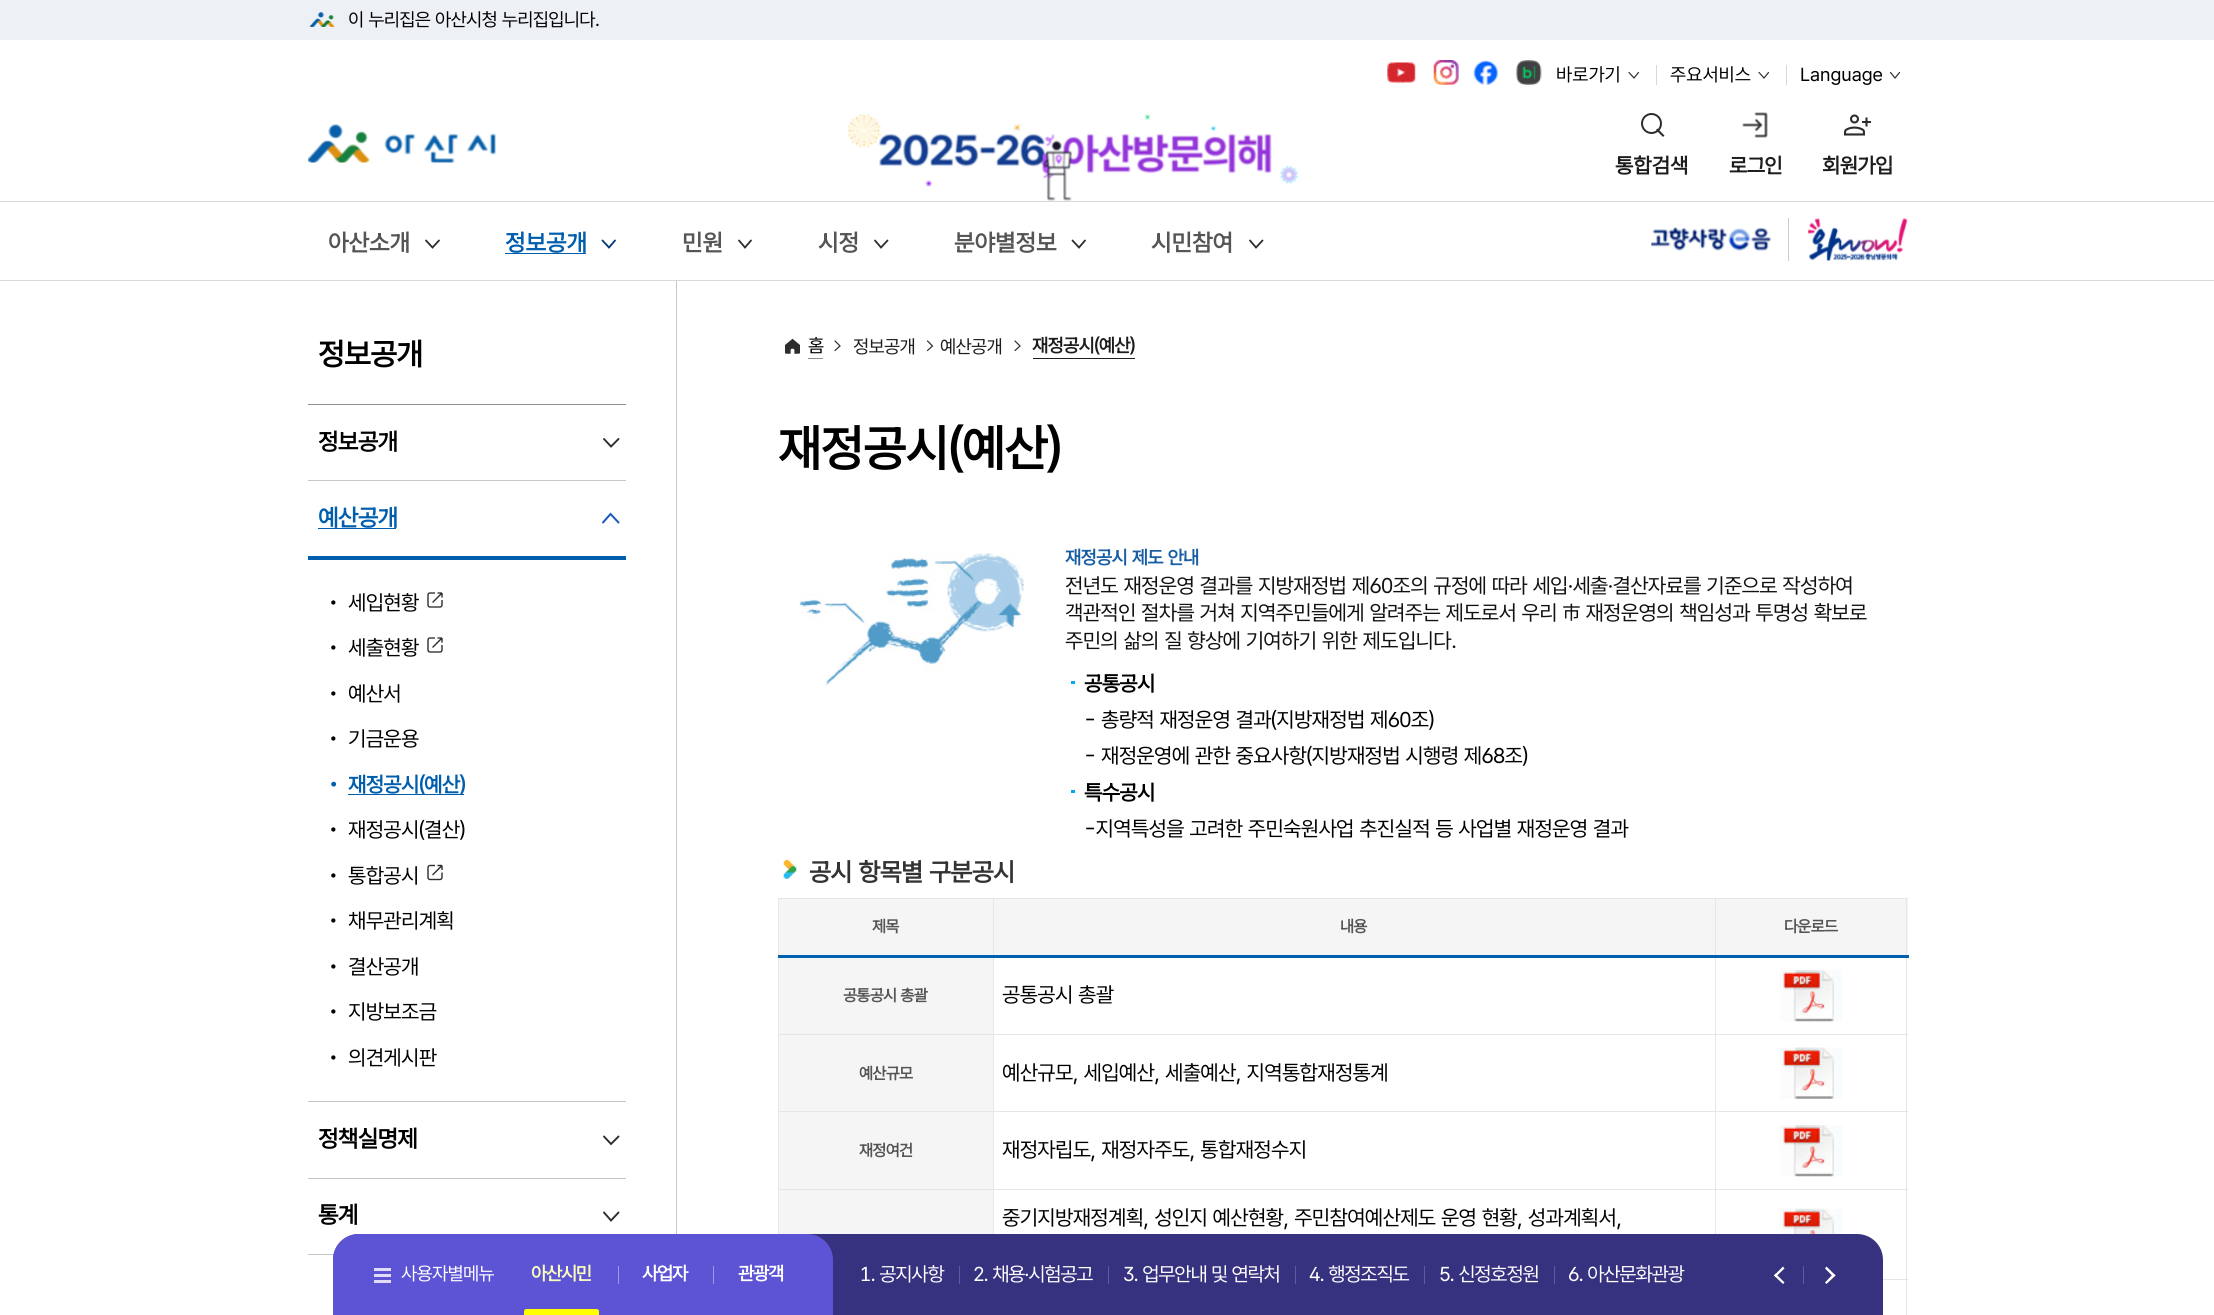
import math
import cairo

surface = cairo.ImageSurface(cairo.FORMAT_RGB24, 2214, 1315)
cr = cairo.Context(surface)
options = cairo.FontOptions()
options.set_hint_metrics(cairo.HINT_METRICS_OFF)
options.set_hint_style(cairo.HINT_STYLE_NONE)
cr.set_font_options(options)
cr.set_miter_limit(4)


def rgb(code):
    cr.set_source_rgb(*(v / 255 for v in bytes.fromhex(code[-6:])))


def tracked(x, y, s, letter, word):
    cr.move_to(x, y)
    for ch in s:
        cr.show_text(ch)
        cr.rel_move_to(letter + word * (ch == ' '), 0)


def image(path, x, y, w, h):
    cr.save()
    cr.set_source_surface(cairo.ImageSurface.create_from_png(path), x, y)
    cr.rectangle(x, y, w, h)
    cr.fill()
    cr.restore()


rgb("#ffffff")
cr.paint()
rgb("#edf1f5")
cr.rectangle(0, 0, 2214, 40)
cr.fill()
image("img/1.png", 309, 12, 26, 15)
rgb("#d8d8d8")
cr.rectangle(0, 280, 2214, 1)
cr.fill()
image("img/2.png", 1387, 62, 29, 22)
image("img/3.png", 1433, 60, 26, 25)
image("img/4.png", 1473, 60, 26, 25)
image("img/5.png", 1516, 60, 26, 25)
cr.new_path()
cr.move_to(1629, 72.5)
cr.line_to(1634, 78)
cr.line_to(1638.5, 72.5)
rgb("#2d2d2d")
cr.set_line_width(1.2)
cr.set_line_cap(cairo.LINE_CAP_ROUND)
cr.stroke()
rgb("#d8d8d8")
cr.rectangle(1656, 65, 1, 20)
cr.fill()
cr.new_path()
cr.move_to(1759, 72.5)
cr.line_to(1764, 78)
cr.line_to(1768.5, 72.5)
rgb("#2d2d2d")
cr.stroke()
rgb("#d8d8d8")
cr.rectangle(1786, 65, 1, 20)
cr.fill()
cr.new_path()
cr.move_to(1890.5, 72.5)
cr.line_to(1895, 78)
cr.line_to(1899.5, 72.5)
rgb("#2d2d2d")
cr.stroke()
image("img/6.png", 308, 124, 188, 39)
image("img/7.png", 847, 114, 452, 87)
cr.arc(1651.5, 123.5, 9.5, 0, 2 * math.pi)
cr.set_line_width(2)
cr.set_line_cap(cairo.LINE_CAP_BUTT)
cr.stroke()
cr.new_path()
cr.move_to(1657.5, 130)
cr.line_to(1663, 135.5)
cr.set_line_width(2.1)
cr.set_line_cap(cairo.LINE_CAP_SQUARE)
cr.stroke()
image("img/8.png", 1742, 112, 26, 26)
image("img/9.png", 1844, 114, 27, 22)
rgb("#d8d8d8")
cr.rectangle(0, 201, 2214, 1)
cr.fill()
cr.new_path()
cr.move_to(426, 240.5)
cr.line_to(432.5, 247.5)
cr.line_to(439, 240.5)
rgb("#2d2d2d")
cr.set_line_width(1.8)
cr.set_line_cap(cairo.LINE_CAP_ROUND)
cr.stroke()
rgb("#005ead")
cr.rectangle(505, 253, 81, 1)
cr.fill()
cr.new_path()
cr.move_to(602.5, 240.5)
cr.line_to(609, 247.5)
cr.line_to(615, 240.5)
rgb("#003675")
cr.stroke()
cr.new_path()
cr.move_to(739, 240.5)
cr.line_to(745, 247.5)
cr.line_to(751, 240.5)
rgb("#2d2d2d")
cr.stroke()
cr.new_path()
cr.move_to(875, 240.5)
cr.line_to(881, 247.5)
cr.line_to(887.5, 240.5)
cr.stroke()
cr.new_path()
cr.move_to(1072.5, 240.5)
cr.line_to(1079, 247.5)
cr.line_to(1085, 240.5)
cr.stroke()
cr.new_path()
cr.move_to(1250, 240.5)
cr.line_to(1256, 247.5)
cr.line_to(1262.5, 240.5)
cr.stroke()
image("img/10.png", 1651, 227, 121, 24)
rgb("#cccccc")
cr.rectangle(1788, 218, 1, 43)
cr.fill()
image("img/11.png", 1808, 217, 100, 44)
for x, y, w, h, color in [
    (676, 281, 1, 953, "#c6c6c6"),
    (308, 404, 318, 1, "#8e8e8e"),
    (308, 1254, 26, 1, "#c6c6c6"),
]:
    rgb(color)
    cr.rectangle(x, y, w, h)
    cr.fill()
cr.new_path()
cr.move_to(604, 439)
cr.line_to(611, 446.5)
cr.line_to(618.5, 439)
rgb("#2d2d2d")
cr.set_line_width(1.9)
cr.stroke()
rgb("#c6c6c6")
cr.rectangle(308, 480, 318, 1)
cr.fill()
rgb("#005ead")
cr.rectangle(318, 528, 78, 1)
cr.fill()
cr.new_path()
cr.move_to(618.5, 522.5)
cr.line_to(610.5, 514)
cr.line_to(603, 522.5)
rgb("#1d56bc")
cr.set_line_width(2)
cr.stroke()
rgb("#005ead")
cr.rectangle(308, 556, 318, 4)
cr.fill()
image("img/12.png", 427, 592, 16, 16)
image("img/12.png", 427, 637, 16, 16)
cr.rectangle(348, 794, 116, 1)
cr.fill()
image("img/13.png", 427, 864, 16, 17)
rgb("#c6c6c6")
cr.rectangle(308, 1101, 318, 1)
cr.fill()
cr.new_path()
cr.move_to(604, 1136.5)
cr.line_to(611, 1144)
cr.line_to(618.5, 1136.5)
rgb("#2d2d2d")
cr.set_line_width(1.9)
cr.stroke()
rgb("#c6c6c6")
cr.rectangle(308, 1178, 318, 1)
cr.fill()
cr.new_path()
cr.move_to(604, 1212.5)
cr.line_to(611, 1220.5)
cr.line_to(618.5, 1212.5)
rgb("#2d2d2d")
cr.stroke()
image("img/14.png", 785, 338, 15, 16)
rgb("#8e8e8e")
cr.rectangle(808, 358, 15, 1)
cr.fill()
cr.new_path()
cr.move_to(835, 350.5)
cr.line_to(840, 346)
cr.line_to(835, 341)
rgb("#2d2d2d")
cr.set_line_width(1.2)
cr.stroke()
cr.new_path()
cr.move_to(927.5, 350.5)
cr.line_to(932.5, 346)
cr.line_to(927.5, 341)
cr.stroke()
cr.new_path()
cr.move_to(1015, 350.5)
cr.line_to(1020, 346)
cr.line_to(1015, 341)
cr.stroke()
rgb("#1d1d1d")
cr.rectangle(1033, 358, 102, 1)
cr.fill()
image("img/15.png", 799, 553, 226, 133)
rgb("#01aaeb")
cr.rectangle(1071, 681, 4, 3)
cr.fill()
cr.rectangle(1071, 790, 4, 3)
cr.fill()
image("img/16.png", 783, 860, 14, 19)
for x, y, w, h, color in [
    (778, 898, 1130, 1, "#e6e6e6"),
    (778, 898, 1, 336, "#e6e6e6"),
    (779, 899, 214, 56, "#f5f5f5"),
    (994, 899, 721, 56, "#f5f5f5"),
    (1716, 899, 192, 56, "#f5f5f5"),
    (1906, 898, 1, 417, "#e6e6e6"),
    (1715, 1189, 1, 45, "#e6e6e6"),
    (1715, 1189, 193, 1, "#e6e6e6"),
    (1715, 1111, 1, 79, "#e6e6e6"),
    (1715, 1111, 193, 1, "#e6e6e6"),
    (1715, 1034, 1, 79, "#e6e6e6"),
    (1715, 1034, 193, 1, "#e6e6e6"),
    (1715, 898, 1, 137, "#e6e6e6"),
    (993, 1189, 1, 45, "#e6e6e6"),
    (993, 1189, 723, 1, "#e6e6e6"),
    (993, 1111, 1, 79, "#e6e6e6"),
    (993, 1111, 723, 1, "#e6e6e6"),
    (993, 1034, 1, 79, "#e6e6e6"),
    (993, 1034, 723, 1, "#e6e6e6"),
    (993, 898, 1, 137, "#e6e6e6"),
    (778, 955, 1131, 3, "#0061b1"),
    (779, 958, 214, 76, "#f5f5f5"),
    (778, 1034, 216, 1, "#e6e6e6"),
]:
    rgb(color)
    cr.rectangle(x, y, w, h)
    cr.fill()
image("img/17.png", 1780, 970, 63, 52)
rgb("#f5f5f5")
cr.rectangle(779, 1035, 214, 76)
cr.fill()
rgb("#e6e6e6")
cr.rectangle(778, 1111, 216, 1)
cr.fill()
image("img/18.png", 1780, 1047, 63, 52)
rgb("#f5f5f5")
cr.rectangle(779, 1112, 214, 77)
cr.fill()
rgb("#e6e6e6")
cr.rectangle(778, 1189, 216, 1)
cr.fill()
image("img/17.png", 1780, 1125, 63, 52)
rgb("#f5f5f5")
cr.rectangle(779, 1190, 214, 44)
cr.fill()
rgb("#e6e6e6")
cr.rectangle(1883, 1279, 25, 1)
cr.fill()
image("img/19.png", 1780, 1208, 63, 26)
rgb("#373280")
cr.new_path()
cr.move_to(359, 1234)
cr.line_to(1857, 1234)
cr.curve_to(1871.5, 1234, 1883, 1245.5, 1883, 1260)
cr.line_to(1883, 1315)
cr.line_to(333, 1315)
cr.line_to(333, 1260)
cr.curve_to(333, 1245.5, 344.5, 1234, 359, 1234)
cr.close_path()
cr.fill()
rgb("#5d54d5")
cr.new_path()
cr.move_to(359, 1234)
cr.line_to(807, 1234)
cr.curve_to(821.5, 1234, 833, 1245.5, 833, 1260)
cr.line_to(833, 1315)
cr.line_to(333, 1315)
cr.line_to(333, 1260)
cr.curve_to(333, 1245.5, 344.5, 1234, 359, 1234)
cr.close_path()
cr.fill()
for x, y, w, h, color in [
    (374, 1268, 17, 3, "#dfddf7"),
    (374, 1280, 17, 3, "#dfddf7"),
    (374, 1274, 17, 3, "#dfddf7"),
]:
    rgb(color)
    cr.rectangle(x, y, w, h)
    cr.fill()
rgb("#ffff00")
cr.new_path()
cr.move_to(526.5, 1309)
cr.line_to(596.5, 1309)
cr.curve_to(598, 1309, 599, 1310, 599, 1311.5)
cr.line_to(599, 1315)
cr.line_to(524, 1315)
cr.line_to(524, 1311.5)
cr.curve_to(524, 1310, 525, 1309, 526.5, 1309)
cr.close_path()
cr.fill()
for x, y, w, h, color in [
    (618, 1266, 1, 18, "#9e98e6"),
    (713, 1266, 1, 18, "#9e98e6"),
    (959, 1266, 1, 18, "#5f5b99"),
    (1108, 1266, 1, 18, "#5f5b99"),
    (1295, 1266, 1, 18, "#5f5b99"),
    (1424, 1266, 1, 18, "#5f5b99"),
    (1554, 1266, 1, 18, "#5f5b99"),
]:
    rgb(color)
    cr.rectangle(x, y, w, h)
    cr.fill()
rgb("#ffffff")
cr.new_path()
cr.move_to(1775.5, 1273.5)
cr.line_to(1784.5, 1282.5)
cr.line_to(1783, 1284)
cr.line_to(1774, 1275.5)
cr.close_path()
cr.fill()
rgb("#5f5b99")
cr.rectangle(1803, 1266, 1, 18)
cr.fill()
rgb("#ffffff")
cr.new_path()
cr.move_to(1783, 1266.5)
cr.line_to(1784.5, 1268.5)
cr.line_to(1775.5, 1277)
cr.line_to(1774, 1275.5)
cr.close_path()
cr.move_to(1826.5, 1266.5)
cr.line_to(1835.5, 1275.5)
cr.line_to(1833.5, 1277)
cr.line_to(1825, 1268.5)
cr.close_path()
cr.fill()
cr.new_path()
cr.move_to(1833.5, 1273.5)
cr.line_to(1835.5, 1275.5)
cr.line_to(1826.5, 1284)
cr.line_to(1825, 1282.5)
cr.close_path()
cr.fill()
cr.select_font_face("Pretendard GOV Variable")
cr.set_font_size(18.75)
rgb("#000000")
tracked(348, 26, "이 누리집은 아산시청 누리집입니다.", -0.7, 0)
for x, y, s in [
    (1556, 81, "바로가기"),
    (1670, 81, "주요서비스"),
    (1800, 81, "Language"),
]:
    cr.move_to(x, y)
    cr.show_text(s)
cr.select_font_face("Pretendard GOV Variable", cairo.FONT_SLANT_NORMAL, cairo.FONT_WEIGHT_BOLD)
cr.set_font_size(21.25)
rgb("#1d1d1d")
cr.move_to(1615, 173)
cr.show_text("통합검색")
tracked(1729, 173, "로그인", -0.7, 0)
tracked(1822, 173, "회원가입", -0.7, 0)
cr.set_font_size(23.75)
rgb("#555555")
cr.move_to(328, 251)
cr.show_text("아산소개")
rgb("#005ead")
cr.move_to(505, 251)
cr.show_text("정보공개")
rgb("#555555")
for x, y, s in [
    (682, 251, "민원"),
    (818, 251, "시정"),
    (954, 251, "분야별정보"),
    (1151, 251, "시민참여"),
]:
    cr.move_to(x, y)
    cr.show_text(s)
cr.set_font_size(31)
rgb("#000000")
tracked(318, 365, "정보공개", -0.7, 0)
cr.set_font_size(23.75)
tracked(318, 450, "정보공개", -0.7, 0)
rgb("#005ead")
tracked(318, 526, "예산공개", -0.7, 0)
cr.select_font_face("Pretendard GOV Variable")
cr.set_font_size(21.25)
rgb("#000000")
for x, y, s in [
    (328, 610, "•"),
    (348, 610, "세입현황"),
    (328, 655, "•"),
    (348, 655, "세출현황"),
    (328, 701, "•"),
    (348, 701, "예산서"),
    (328, 746, "•"),
    (348, 746, "기금운용"),
]:
    tracked(x, y, s, -0.7, 0)
cr.select_font_face("Pretendard GOV Variable", cairo.FONT_SLANT_NORMAL, cairo.FONT_WEIGHT_BOLD)
rgb("#005ead")
tracked(328, 792, "•", -0.7, 0)
tracked(348, 792, "재정공시(예산)", -0.7, 0)
cr.select_font_face("Pretendard GOV Variable")
rgb("#000000")
for x, y, s in [
    (328, 837, "•"),
    (348, 837, "재정공시(결산)"),
    (328, 883, "•"),
    (348, 883, "통합공시"),
    (328, 928, "•"),
    (348, 928, "채무관리계획"),
    (328, 974, "•"),
    (348, 974, "결산공개"),
    (328, 1019, "•"),
    (348, 1019, "지방보조금"),
    (328, 1065, "•"),
    (348, 1065, "의견게시판"),
]:
    tracked(x, y, s, -0.7, 0)
cr.select_font_face("Pretendard GOV Variable", cairo.FONT_SLANT_NORMAL, cairo.FONT_WEIGHT_BOLD)
cr.set_font_size(23.75)
tracked(318, 1147, "정책실명제", -0.7, 0)
tracked(318, 1223, "통계", -0.7, 0)
cr.select_font_face("Pretendard GOV Variable")
cr.set_font_size(18.75)
tracked(808, 352, "홈", -0.7, 0)
rgb("#1d1d1d")
tracked(853, 353, "정보공개", -0.7, 0)
tracked(940, 353, "예산공개", -0.7, 0)
cr.select_font_face("Pretendard GOV Variable", cairo.FONT_SLANT_NORMAL, cairo.FONT_WEIGHT_BOLD)
tracked(1032, 352, "재정공시(예산)", -0.7, 0)
cr.set_font_size(50)
rgb("#000000")
tracked(778, 466, "재정공시(예산)", -0.7, 0)
cr.set_font_size(18.75)
rgb("#185ea5")
tracked(1065, 564, "재정공시 제도 안내", -0.7, 0)
cr.select_font_face("Pretendard GOV Variable")
cr.set_font_size(21.25)
rgb("#111111")
for x, y, s in [
    (1065, 593, "전년도 재정운영 결과를 지방재정법 제60조의 규정에 따라 세입·세출·결산자료를 기준으로 작성하여"),
    (1065, 620, "객관적인 절차를 거쳐 지역주민들에게 알려주는 제도로서 우리 市 재정운영의 책임성과 투명성 확보로"),
    (1065, 648, "주민의 삶의 질 향상에 기여하기 위한 제도입니다."),
]:
    tracked(x, y, s, -0.7, 0)
cr.select_font_face("Pretendard GOV Variable", cairo.FONT_SLANT_NORMAL, cairo.FONT_WEIGHT_BOLD)
rgb("#000000")
tracked(1084, 691, "공통공시", -0.7, 0)
cr.select_font_face("Pretendard GOV Variable")
tracked(1084, 727, "- 총량적 재정운영 결과(지방재정법 제60조)", -0.7, 0)
tracked(1084, 763, "- 재정운영에 관한 중요사항(지방재정법 시행령 제68조)", -0.7, 0)
cr.select_font_face("Pretendard GOV Variable", cairo.FONT_SLANT_NORMAL, cairo.FONT_WEIGHT_BOLD)
tracked(1084, 800, "특수공시", -0.7, 0)
cr.select_font_face("Pretendard GOV Variable")
tracked(1084, 836, "-지역특성을 고려한 주민숙원사업 추진실적 등 사업별 재정운영 결과", -0.7, 0)
cr.select_font_face("Pretendard GOV Variable", cairo.FONT_SLANT_NORMAL, cairo.FONT_WEIGHT_BOLD)
cr.set_font_size(25.5)
rgb("#333333")
tracked(809, 881, "공시 항목별 구분공시", -0.7, 0)
cr.set_font_size(16.25)
rgb("#555555")
for x, y, s in [
    (872, 932, "제목"),
    (1340, 932, "내용"),
    (1784, 932, "다운로드"),
    (843, 1001, "공통공시 총괄"),
]:
    tracked(x, y, s, -0.7, 0)
cr.select_font_face("Pretendard GOV Variable")
cr.set_font_size(21.25)
rgb("#000000")
tracked(1002, 1002, "공통공시 총괄", -0.7, 0)
cr.select_font_face("Pretendard GOV Variable", cairo.FONT_SLANT_NORMAL, cairo.FONT_WEIGHT_BOLD)
cr.set_font_size(16.25)
rgb("#555555")
tracked(859, 1079, "예산규모", -0.7, 0)
cr.select_font_face("Pretendard GOV Variable")
cr.set_font_size(21.25)
rgb("#000000")
tracked(1002, 1080, "예산규모, 세입예산, 세출예산, 지역통합재정통계", -0.7, 0)
cr.select_font_face("Pretendard GOV Variable", cairo.FONT_SLANT_NORMAL, cairo.FONT_WEIGHT_BOLD)
cr.set_font_size(16.25)
rgb("#555555")
tracked(859, 1156, "재정여건", -0.7, 0)
cr.select_font_face("Pretendard GOV Variable")
cr.set_font_size(21.25)
rgb("#000000")
tracked(1002, 1157, "재정자립도, 재정자주도, 통합재정수지", -0.7, 0)
tracked(1002, 1225, "중기지방재정계획, 성인지 예산현황, 주민참여예산제도 운영 현황, 성과계획서,", -0.7, 0)
cr.set_font_size(18.75)
rgb("#ffffff")
tracked(401, 1280, "사용자별메뉴", -0.7, 0)
cr.select_font_face("Pretendard GOV Variable", cairo.FONT_SLANT_NORMAL, cairo.FONT_WEIGHT_BOLD)
rgb("#fafeba")
tracked(531, 1280, "아산시민", -1.25, 0)
rgb("#ffffff")
tracked(642, 1280, "사업자", -1.25, 0)
tracked(738, 1280, "관광객", -1.25, 0)
cr.select_font_face("Pretendard GOV Variable")
cr.set_font_size(20)
for x, y, s in [
    (860, 1281, "1. 공지사항"),
    (973, 1281, "2. 채용·시험공고"),
    (1123, 1281, "3. 업무안내 및 연락처"),
    (1309, 1281, "4. 행정조직도"),
    (1439, 1281, "5. 신정호정원"),
    (1568, 1281, "6. 아산문화관광"),
]:
    tracked(x, y, s, -1.25, 0)
surface.write_to_png("page.png")
